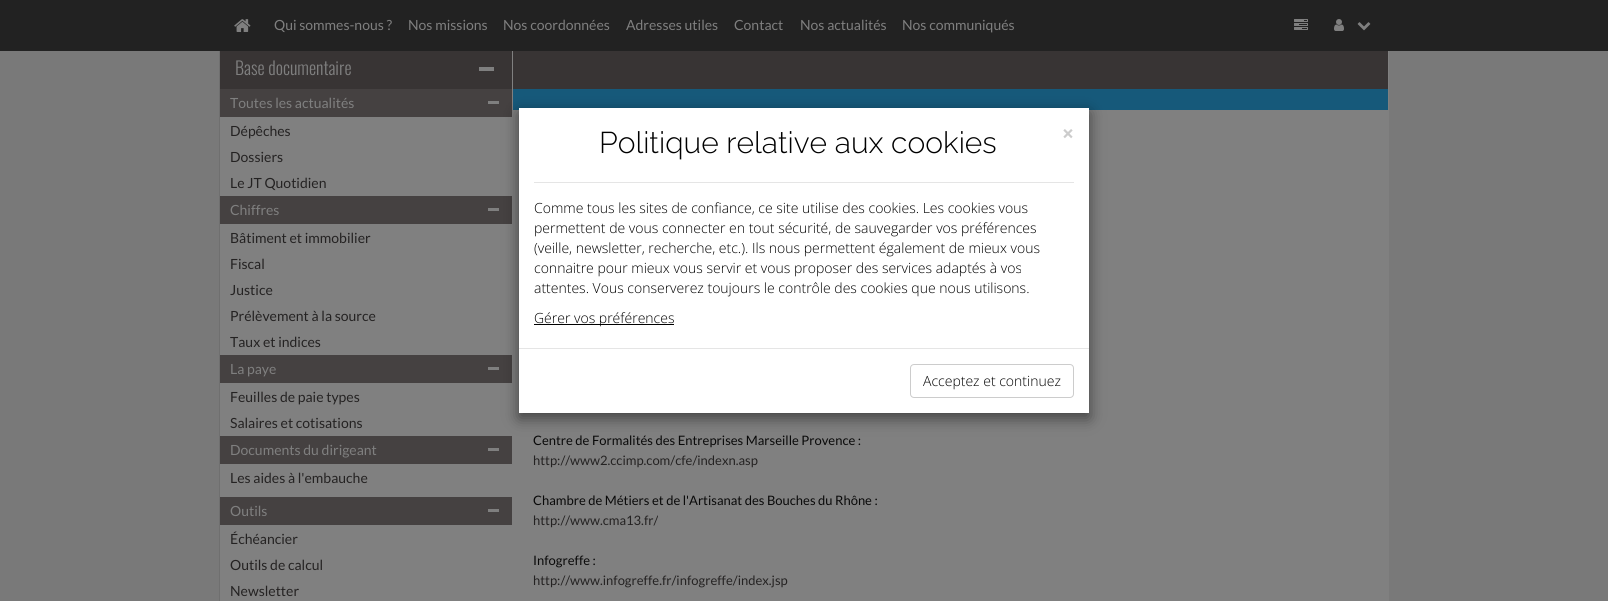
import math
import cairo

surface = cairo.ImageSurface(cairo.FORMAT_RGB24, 1608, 601)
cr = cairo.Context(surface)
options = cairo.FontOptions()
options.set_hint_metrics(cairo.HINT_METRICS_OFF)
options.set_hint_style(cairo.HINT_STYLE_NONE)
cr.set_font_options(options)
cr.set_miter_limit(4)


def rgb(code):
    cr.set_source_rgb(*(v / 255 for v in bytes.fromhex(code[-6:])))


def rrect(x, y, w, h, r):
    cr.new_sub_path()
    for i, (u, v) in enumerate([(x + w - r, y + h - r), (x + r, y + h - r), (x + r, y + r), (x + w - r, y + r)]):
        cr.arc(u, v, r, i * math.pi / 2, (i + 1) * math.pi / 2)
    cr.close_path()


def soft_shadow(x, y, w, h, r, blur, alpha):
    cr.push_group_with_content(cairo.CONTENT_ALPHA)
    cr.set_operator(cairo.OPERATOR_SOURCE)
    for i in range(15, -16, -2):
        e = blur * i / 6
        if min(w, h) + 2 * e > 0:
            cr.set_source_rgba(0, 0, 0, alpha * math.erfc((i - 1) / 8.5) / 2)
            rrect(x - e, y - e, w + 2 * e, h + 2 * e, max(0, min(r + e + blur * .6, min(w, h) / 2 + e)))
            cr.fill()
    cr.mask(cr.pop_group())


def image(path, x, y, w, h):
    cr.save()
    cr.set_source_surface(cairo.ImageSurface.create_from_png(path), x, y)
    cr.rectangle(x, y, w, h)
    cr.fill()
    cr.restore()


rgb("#797979")
cr.paint()
rgb("#6f6f6f")
cr.rectangle(219, 47, 1, 554)
cr.fill()
rgb("#222222")
cr.rectangle(0, 0, 1608, 51)
cr.fill()
image("img/1.png", 234, 19, 17, 13)
image("img/2.png", 1294, 19, 14, 11)
image("img/3.png", 1334, 19, 10, 12)
image("img/4.png", 1357, 22, 14, 9)
for x, y, w, h, color in [
    (220, 117, 292, 484, "#808080"),
    (220, 51, 292, 38, "#383434"),
    (479, 67, 15, 4, "#7f7f7f"),
    (220, 89, 292, 28, "#454141"),
    (488, 101, 11, 3, "#7f7f7f"),
    (220, 196, 292, 28, "#454141"),
    (488, 208, 11, 3, "#7f7f7f"),
    (220, 355, 292, 28, "#454141"),
    (488, 367, 11, 3, "#7f7f7f"),
    (220, 436, 292, 28, "#454141"),
    (488, 448, 11, 3, "#7f7f7f"),
    (220, 497, 292, 28, "#454141"),
    (488, 509, 11, 3, "#7f7f7f"),
    (512, 51, 877, 550, "#808080"),
    (513, 51, 875, 38, "#383434"),
    (513, 89, 875, 21, "#16597a"),
]:
    rgb(color)
    cr.rectangle(x, y, w, h)
    cr.fill()
rgb("#000000")
soft_shadow(519, 113, 570, 305, 0, 7.5, 0.5)
for x, y, w, h, color in [
    (519, 108, 570, 305, "#ffffff"),
    (534, 182, 540, 1, "#e5e5e5"),
    (534, 324, 140, 1, "#000000"),
    (519, 348, 570, 1, "#e5e5e5"),
]:
    rgb(color)
    cr.rectangle(x, y, w, h)
    cr.fill()
rrect(910.5, 364.5, 163, 33, 3.5)
rgb("#cccccc")
cr.set_line_width(1)
cr.stroke()
cr.select_font_face("Lato")
cr.set_font_size(14)
rgb("#7f7f7f")
for x, y, s in [
    (274, 30, "Qui sommes-nous ?"),
    (408, 30, "Nos missions"),
    (503, 30, "Nos coordonnées"),
    (626, 30, "Adresses utiles"),
    (734, 30, "Contact"),
    (800, 30, "Nos actualités"),
    (902, 30, "Nos communiqués"),
]:
    cr.move_to(x, y)
    cr.show_text(s)
cr.select_font_face("Oswald Light")
cr.set_font_size(18)
cr.move_to(235, 75)
cr.show_text("Base documentaire")
cr.select_font_face("Lato")
cr.set_font_size(14)
cr.move_to(230, 108)
cr.show_text("Toutes les actualités")
rgb("#242222")
for x, y, s in [
    (230, 136, "Dépêches"),
    (230, 162, "Dossiers"),
    (230, 188, "Le JT Quotidien"),
]:
    cr.move_to(x, y)
    cr.show_text(s)
rgb("#7f7f7f")
cr.move_to(230, 215)
cr.show_text("Chiffres")
rgb("#242222")
for x, y, s in [
    (230, 243, "Bâtiment et immobilier"),
    (230, 269, "Fiscal"),
    (230, 295, "Justice"),
    (230, 321, "Prélèvement à la source"),
    (230, 347, "Taux et indices"),
]:
    cr.move_to(x, y)
    cr.show_text(s)
rgb("#7f7f7f")
cr.move_to(230, 374)
cr.show_text("La paye")
rgb("#242222")
cr.move_to(230, 402)
cr.show_text("Feuilles de paie types")
cr.move_to(230, 428)
cr.show_text("Salaires et cotisations")
rgb("#7f7f7f")
cr.move_to(230, 455)
cr.show_text("Documents du dirigeant")
rgb("#242222")
cr.move_to(230, 483)
cr.show_text("Les aides à l'embauche")
rgb("#7f7f7f")
cr.move_to(230, 516)
cr.show_text("Outils")
rgb("#242222")
for x, y, s in [
    (230, 544, "Échéancier"),
    (230, 570, "Outils de calcul"),
    (230, 596, "Newsletter"),
]:
    cr.move_to(x, y)
    cr.show_text(s)
cr.set_font_size(13)
rgb("#090909")
cr.move_to(533, 445)
cr.show_text("Centre de Formalités des Entreprises Marseille Provence :")
rgb("#242222")
cr.move_to(533, 465)
cr.show_text("http://www2.ccimp.com/cfe/indexn.asp")
rgb("#090909")
cr.move_to(533, 505)
cr.show_text("Chambre de Métiers et de l'Artisanat des Bouches du Rhône :")
rgb("#242222")
cr.move_to(533, 525)
cr.show_text("http://www.cma13.fr/")
rgb("#090909")
cr.move_to(533, 565)
cr.show_text("Infogreffe :")
rgb("#242222")
cr.move_to(533, 585)
cr.show_text("http://www.infogreffe.fr/infogreffe/index.jsp")
cr.select_font_face("Raleway Thin")
cr.set_font_size(30)
rgb("#000000")
cr.move_to(599, 153)
cr.show_text("Politique relative aux cookies")
cr.select_font_face("Open Sans", cairo.FONT_SLANT_NORMAL, cairo.FONT_WEIGHT_BOLD)
cr.set_font_size(21)
rgb("#cccccc")
cr.move_to(1062, 141)
cr.show_text("×")
cr.select_font_face("Open Sans Light")
cr.set_font_size(14)
rgb("#000000")
for x, y, s in [
    (534, 213, "Comme tous les sites de confiance, ce site utilise des cookies. Les cookies vous"),
    (534, 233, "permettent de vous connecter en tout sécurité, de sauvegarder vos préférences"),
    (534, 253, "(veille, newsletter, recherche, etc.). Ils nous permettent également de mieux vous"),
    (534, 273, "connaitre pour mieux vous servir et vous proposer des services adaptés à vos"),
    (534, 293, "attentes. Vous conserverez toujours le contrôle des cookies que nous utilisons."),
    (534, 323, "Gérer vos préférences"),
    (923, 386, "Acceptez et continuez"),
]:
    cr.move_to(x, y)
    cr.show_text(s)
surface.write_to_png("page.png")
